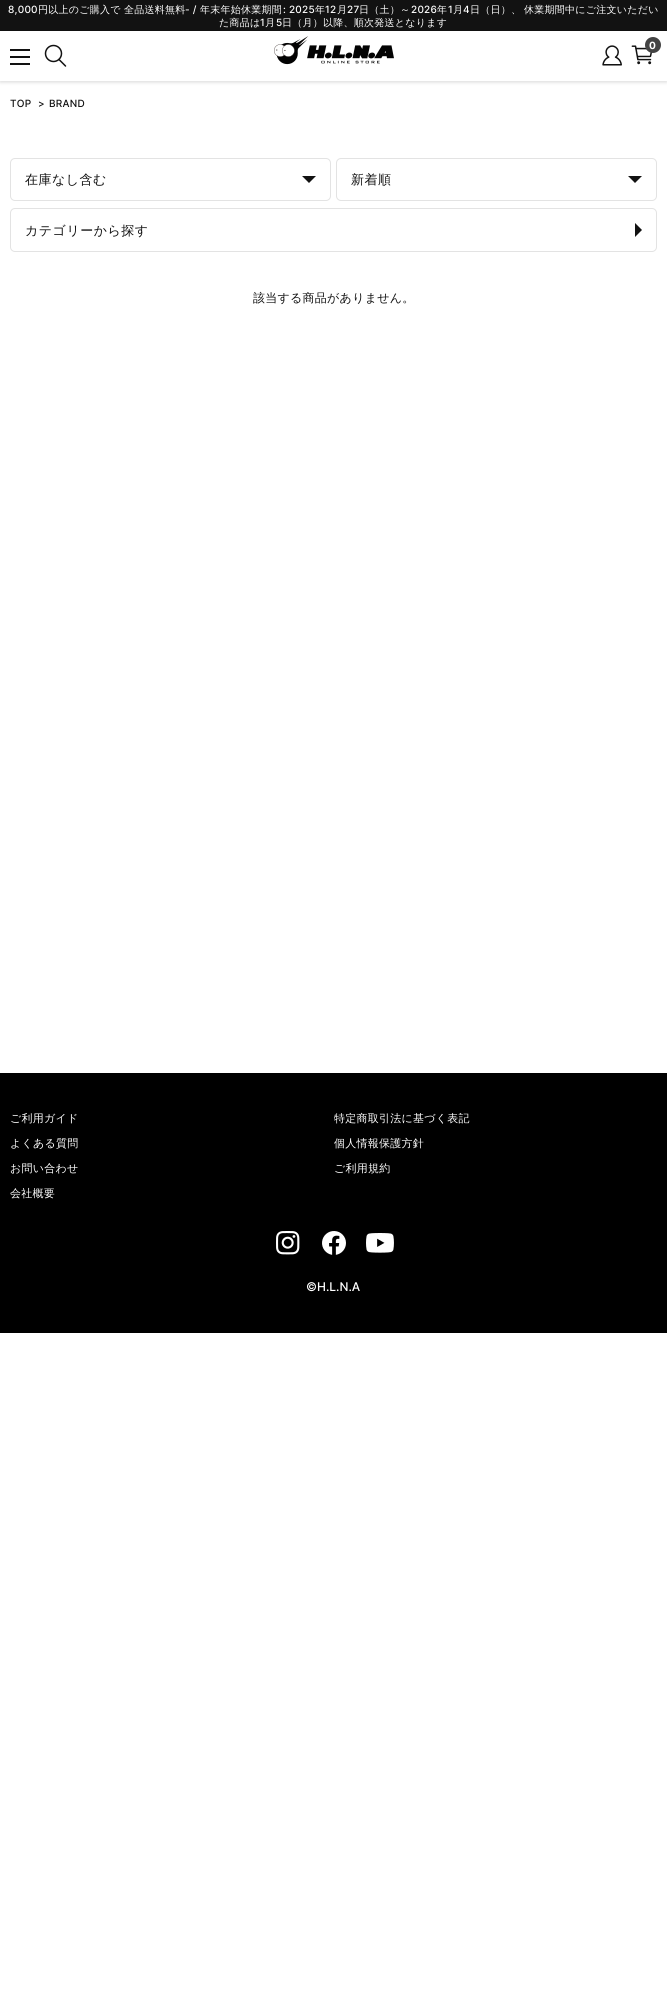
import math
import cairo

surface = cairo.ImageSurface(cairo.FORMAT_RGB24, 667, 1999)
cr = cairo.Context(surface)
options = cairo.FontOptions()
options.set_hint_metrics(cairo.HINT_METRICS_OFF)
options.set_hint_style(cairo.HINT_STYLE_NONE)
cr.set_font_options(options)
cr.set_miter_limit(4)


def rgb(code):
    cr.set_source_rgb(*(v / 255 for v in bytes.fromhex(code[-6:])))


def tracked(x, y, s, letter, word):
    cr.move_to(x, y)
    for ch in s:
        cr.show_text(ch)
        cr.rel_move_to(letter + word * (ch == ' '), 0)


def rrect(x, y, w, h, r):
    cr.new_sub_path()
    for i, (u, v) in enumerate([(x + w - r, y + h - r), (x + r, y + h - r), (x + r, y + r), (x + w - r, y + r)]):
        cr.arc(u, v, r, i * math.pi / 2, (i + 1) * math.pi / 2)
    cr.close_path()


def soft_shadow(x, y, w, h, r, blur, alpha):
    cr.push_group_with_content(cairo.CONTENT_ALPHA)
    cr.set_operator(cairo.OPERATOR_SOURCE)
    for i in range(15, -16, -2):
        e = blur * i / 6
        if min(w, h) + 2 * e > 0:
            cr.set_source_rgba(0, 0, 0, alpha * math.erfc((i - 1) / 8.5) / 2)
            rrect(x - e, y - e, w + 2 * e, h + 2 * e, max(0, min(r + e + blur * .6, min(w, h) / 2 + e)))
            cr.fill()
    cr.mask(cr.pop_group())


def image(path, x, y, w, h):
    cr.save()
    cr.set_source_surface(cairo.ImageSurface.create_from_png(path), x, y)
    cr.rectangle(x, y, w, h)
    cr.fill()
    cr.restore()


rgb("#ffffff")
cr.paint()
rgb("#121212")
cr.rectangle(0, 0, 667, 31)
cr.fill()
cr.save()
cr.set_fill_rule(cairo.FILL_RULE_EVEN_ODD)
cr.new_path()
cr.move_to(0, 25)
cr.line_to(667, 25)
cr.line_to(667, 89)
cr.line_to(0, 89)
cr.close_path()
cr.move_to(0, 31)
cr.line_to(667, 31)
cr.line_to(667, 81)
cr.line_to(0, 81)
cr.close_path()
cr.clip()
rgb("#000000")
soft_shadow(0, 32, 667, 50, 0, 2, 0.16)
cr.restore()
for x, y, w, h, color in [
    (10, 49, 20, 2, "#121212"),
    (10, 56, 20, 2, "#121212"),
    (10, 63, 20, 2, "#121212"),
]:
    rgb(color)
    cr.rectangle(x, y, w, h)
    cr.fill()
image("img/1.png", 274, 36, 120, 29)
cr.arc(53.5, 53.5, 8, 0, 2 * math.pi)
cr.set_line_width(1.5)
cr.stroke()
cr.new_path()
cr.move_to(59, 59.5)
cr.line_to(65.5, 66)
cr.set_line_cap(cairo.LINE_CAP_ROUND)
cr.stroke()
image("img/2.png", 602, 45, 20, 21)
image("img/3.png", 631, 45, 22, 20)
rgb("#434343")
cr.arc(653, 45, 8, 0, 2 * math.pi)
cr.fill()
rrect(10.5, 158.5, 320, 42, 4.5)
rgb("#e3e3e3")
cr.set_line_width(1)
cr.set_line_cap(cairo.LINE_CAP_BUTT)
cr.stroke()
rgb("#121212")
cr.new_path()
cr.move_to(302, 176)
cr.line_to(316, 176)
cr.line_to(309, 183)
cr.close_path()
cr.fill()
rrect(336.5, 158.5, 320, 42, 4.5)
rgb("#e3e3e3")
cr.stroke()
rgb("#121212")
cr.new_path()
cr.move_to(628, 176)
cr.line_to(642, 176)
cr.line_to(635, 183)
cr.close_path()
cr.fill()
rrect(10.5, 208.5, 646, 43, 4.5)
rgb("#e3e3e3")
cr.stroke()
rgb("#121212")
cr.new_path()
cr.move_to(635, 237)
cr.line_to(635, 223)
cr.line_to(642, 230)
cr.close_path()
cr.fill()
rgb("#000000")
cr.rectangle(0, 1073, 667, 260)
cr.fill()
image("img/4.png", 276, 1231, 24, 24)
image("img/5.png", 322, 1231, 24, 24)
image("img/6.png", 366, 1233, 28, 20)
cr.select_font_face("Inter Medium")
cr.set_font_size(10)
rgb("#ffffff")
tracked(8, 13, "8,000", 0.25, 0)
cr.select_font_face("WenQuanYi Zen Hei Medium")
tracked(38, 13, "円以上のご購入で", 0.25, 0)
tracked(124, 13, "全品送料無料", 0.25, 0)
cr.select_font_face("Inter Medium")
tracked(185, 13, "- /", 0.25, 0)
cr.select_font_face("WenQuanYi Zen Hei Medium")
tracked(200, 13, "年末年始休業期間", 0.25, 0)
cr.select_font_face("Inter Medium")
tracked(283, 13, ": 2025", 0.25, 0)
cr.select_font_face("WenQuanYi Zen Hei Medium")
tracked(315, 13, "年", 0.25, 0)
cr.select_font_face("Inter Medium")
tracked(325, 13, "12", 0.25, 0)
cr.select_font_face("WenQuanYi Zen Hei Medium")
tracked(337, 13, "月", 0.25, 0)
cr.select_font_face("Inter Medium")
tracked(347, 13, "27", 0.25, 0)
cr.select_font_face("WenQuanYi Zen Hei Medium")
tracked(359, 13, "日（土）～", 0.25, 0)
cr.select_font_face("Inter Medium")
tracked(411, 13, "2026", 0.25, 0)
cr.select_font_face("WenQuanYi Zen Hei Medium")
tracked(437, 13, "年", 0.25, 0)
cr.select_font_face("Inter Medium")
tracked(448, 13, "1", 0.25, 0)
cr.select_font_face("WenQuanYi Zen Hei Medium")
tracked(453, 13, "月", 0.25, 0)
cr.select_font_face("Inter Medium")
tracked(463, 13, "4", 0.25, 0)
cr.select_font_face("WenQuanYi Zen Hei Medium")
for x, y, s in [
    (470, 13, "日（日）、"),
    (524, 13, "休業期間中にご注文いただい"),
    (219, 26, "た商品は"),
]:
    tracked(x, y, s, 0.25, 0)
cr.select_font_face("Inter Medium")
tracked(260, 26, "1", 0.25, 0)
cr.select_font_face("WenQuanYi Zen Hei Medium")
tracked(265, 26, "月", 0.25, 0)
cr.select_font_face("Inter Medium")
tracked(276, 26, "5", 0.25, 0)
cr.select_font_face("WenQuanYi Zen Hei Medium")
tracked(282, 26, "日（月）以降、順次発送となります", 0.25, 0)
cr.select_font_face("Inter", cairo.FONT_SLANT_NORMAL, cairo.FONT_WEIGHT_BOLD)
cr.move_to(649, 49)
cr.show_text("0")
cr.select_font_face("Inter Medium")
rgb("#121212")
for x, y, s in [
    (10, 107, "TOP"),
    (38, 107, ">"),
    (49, 107, "BRAND"),
]:
    tracked(x, y, s, 0.25, 0)
cr.select_font_face("WenQuanYi Zen Hei Medium")
cr.set_font_size(13)
for x, y, s in [
    (25, 184, "在庫なし含む"),
    (351, 184, "新着順"),
    (25, 235, "カテゴリーから探す"),
]:
    tracked(x, y, s, 0.5, 0)
cr.set_font_size(12)
tracked(253, 302, "該当する商品がありません。", 0.25, 0)
cr.set_font_size(11)
rgb("#ffffff")
for x, y, s in [
    (10, 1122, "ご利用ガイド"),
    (10, 1147, "よくある質問"),
    (10, 1172, "お問い合わせ"),
    (10, 1197, "会社概要"),
    (334, 1122, "特定商取引法に基づく表記"),
    (334, 1147, "個人情報保護方針"),
    (334, 1172, "ご利用規約"),
]:
    tracked(x, y, s, 0.25, 0)
cr.select_font_face("Inter Medium")
cr.set_font_size(12)
cr.move_to(306, 1291)
cr.show_text("©H.L.N.A")
surface.write_to_png("page.png")
